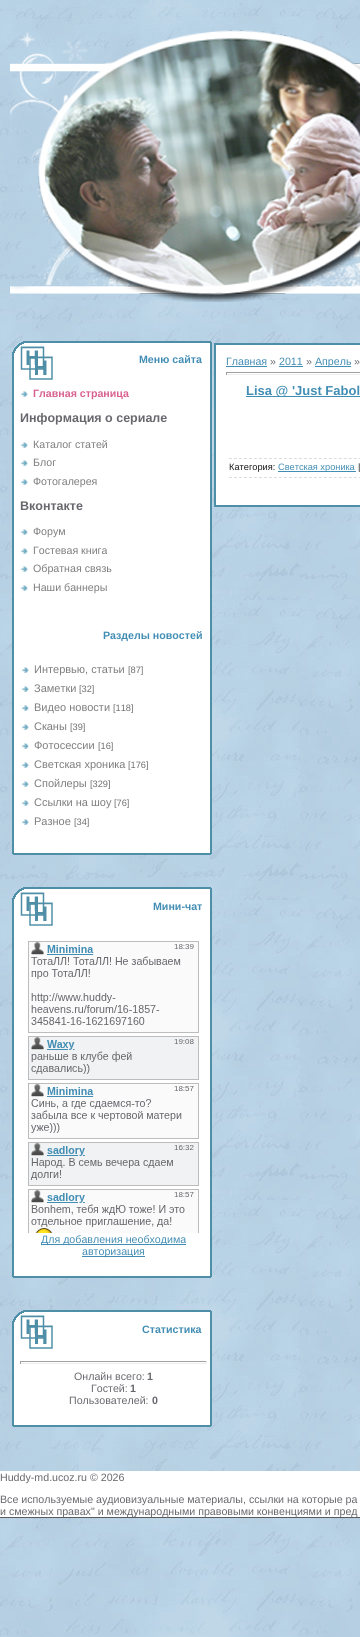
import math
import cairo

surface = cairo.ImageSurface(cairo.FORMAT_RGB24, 360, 1637)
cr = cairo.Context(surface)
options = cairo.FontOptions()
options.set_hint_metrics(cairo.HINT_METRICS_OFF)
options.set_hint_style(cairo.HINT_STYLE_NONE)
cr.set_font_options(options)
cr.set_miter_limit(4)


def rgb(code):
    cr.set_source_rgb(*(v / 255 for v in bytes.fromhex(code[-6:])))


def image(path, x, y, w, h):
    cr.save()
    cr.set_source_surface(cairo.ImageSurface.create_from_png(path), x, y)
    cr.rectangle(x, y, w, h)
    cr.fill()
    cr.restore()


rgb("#ffffff")
cr.paint()
image("img/1.png", 0, 0, 360, 1637)
image("img/2.png", 10, 30, 350, 272)
image("img/3.png", 12, 341, 200, 41)
image("img/4.png", 12, 382, 200, 222)
image("img/5.png", 20, 391, 8, 6)
image("img/5.png", 20, 442, 8, 6)
image("img/5.png", 20, 460, 8, 6)
image("img/5.png", 20, 479, 8, 6)
image("img/5.png", 20, 529, 8, 6)
image("img/5.png", 20, 548, 8, 6)
image("img/5.png", 20, 566, 8, 6)
image("img/5.png", 20, 585, 8, 6)
image("img/6.png", 12, 604, 200, 53)
image("img/7.png", 12, 657, 200, 182)
image("img/5.png", 21, 667, 8, 6)
image("img/5.png", 21, 686, 8, 6)
image("img/5.png", 21, 705, 8, 6)
image("img/5.png", 21, 724, 8, 6)
image("img/5.png", 21, 743, 8, 6)
image("img/5.png", 21, 762, 8, 6)
image("img/5.png", 21, 781, 8, 6)
image("img/5.png", 21, 800, 8, 6)
image("img/5.png", 21, 819, 8, 6)
image("img/8.png", 12, 839, 200, 16)
image("img/9.png", 12, 887, 200, 41)
image("img/10.png", 12, 928, 200, 334)
image("img/11.png", 28, 941, 171, 292)
rgb("#428db4")
cr.rectangle(41, 1244, 145, 1)
cr.fill()
cr.rectangle(82, 1256, 63, 1)
cr.fill()
image("img/12.png", 12, 1262, 200, 16)
image("img/13.png", 12, 1310, 200, 41)
image("img/14.png", 12, 1351, 200, 60)
for x, y, w, h, color in [
    (20, 1361, 187, 1, "#9f9f9f"),
    (206, 1361, 1, 3, "#eeeeee"),
    (20, 1363, 187, 1, "#eeeeee"),
    (20, 1361, 1, 3, "#9f9f9f"),
]:
    rgb(color)
    cr.rectangle(x, y, w, h)
    cr.fill()
image("img/15.png", 12, 1411, 200, 16)
rgb("#ffffff")
cr.rectangle(215, 344, 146, 162)
cr.fill_preserve()
rgb("#4e8ea7")
cr.stroke()
for x, y, w, h, color in [
    (226, 366, 41, 1, "#428db4"),
    (279, 366, 24, 1, "#428db4"),
    (315, 366, 36, 1, "#428db4"),
    (226, 372, 134, 1, "#9f9f9f"),
    (226, 374, 134, 1, "#eeeeee"),
    (226, 372, 1, 3, "#9f9f9f"),
    (246, 396, 114, 1, "#428db4"),
]:
    rgb(color)
    cr.rectangle(x, y, w, h)
    cr.fill()
cr.new_path()
cr.move_to(229, 458.5)
cr.line_to(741, 458.5)
rgb("#dddddd")
cr.set_line_width(1)
cr.set_dash([3, 1.99])
cr.stroke()
cr.new_path()
cr.move_to(229, 477.5)
cr.line_to(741, 477.5)
cr.stroke()
for x, y, w, h, color in [
    (278, 471, 78, 1, "#428db4"),
    (0, 1471, 360, 46, "#ffffff"),
    (0, 1517, 360, 1, "#5b5a5f"),
]:
    rgb(color)
    cr.rectangle(x, y, w, h)
    cr.fill()
cr.select_font_face("Liberation Sans", cairo.FONT_SLANT_NORMAL, cairo.FONT_WEIGHT_BOLD)
cr.set_font_size(10.65)
rgb("#428db4")
cr.move_to(139, 363)
cr.show_text("Меню сайта")
rgb("#d8618f")
cr.move_to(33, 397)
cr.show_text("Главная страница")
cr.set_font_size(12.5)
rgb("#68676d")
cr.move_to(20, 422)
cr.show_text("Информация о сериале")
cr.select_font_face("Liberation Sans")
cr.set_font_size(10.65)
rgb("#7d7d7d")
for x, y, s in [
    (33, 448, "Каталог статей"),
    (33, 466, "Блог"),
    (33, 485, "Фотогалерея"),
]:
    cr.move_to(x, y)
    cr.show_text(s)
cr.select_font_face("Liberation Sans", cairo.FONT_SLANT_NORMAL, cairo.FONT_WEIGHT_BOLD)
cr.set_font_size(12.5)
rgb("#68676d")
cr.move_to(20, 510)
cr.show_text("Вконтакте")
cr.select_font_face("Liberation Sans")
cr.set_font_size(10.65)
rgb("#7d7d7d")
for x, y, s in [
    (33, 535, "Форум"),
    (33, 554, "Гостевая книга"),
    (33, 572, "Обратная связь"),
    (33, 591, "Наши баннеры"),
]:
    cr.move_to(x, y)
    cr.show_text(s)
cr.select_font_face("Liberation Sans", cairo.FONT_SLANT_NORMAL, cairo.FONT_WEIGHT_BOLD)
rgb("#428db4")
cr.move_to(103, 639)
cr.show_text("Разделы новостей")
cr.select_font_face("Liberation Sans")
cr.set_font_size(11)
rgb("#7d7d7d")
cr.move_to(34, 673)
cr.show_text("Интервью, статьи")
cr.set_font_size(9.25)
rgb("#6e6e6e")
cr.move_to(128, 673)
cr.show_text("[87]")
cr.set_font_size(11)
rgb("#7d7d7d")
cr.move_to(34, 692)
cr.show_text("Заметки")
cr.set_font_size(9.25)
rgb("#6e6e6e")
cr.move_to(79, 692)
cr.show_text("[32]")
cr.set_font_size(11)
rgb("#7d7d7d")
cr.move_to(34, 711)
cr.show_text("Видео новости")
cr.set_font_size(9.25)
rgb("#6e6e6e")
cr.move_to(113, 711)
cr.show_text("[118]")
cr.set_font_size(11)
rgb("#7d7d7d")
cr.move_to(34, 730)
cr.show_text("Сканы")
cr.set_font_size(9.25)
rgb("#6e6e6e")
cr.move_to(70, 730)
cr.show_text("[39]")
cr.set_font_size(11)
rgb("#7d7d7d")
cr.move_to(34, 749)
cr.show_text("Фотосессии")
cr.set_font_size(9.25)
rgb("#6e6e6e")
cr.move_to(98, 749)
cr.show_text("[16]")
cr.set_font_size(11)
rgb("#7d7d7d")
cr.move_to(34, 768)
cr.show_text("Светская хроника")
cr.set_font_size(9.25)
rgb("#6e6e6e")
cr.move_to(128, 768)
cr.show_text("[176]")
cr.set_font_size(11)
rgb("#7d7d7d")
cr.move_to(34, 787)
cr.show_text("Спойлеры")
cr.set_font_size(9.25)
rgb("#6e6e6e")
cr.move_to(90, 787)
cr.show_text("[329]")
cr.set_font_size(11)
rgb("#7d7d7d")
cr.move_to(34, 806)
cr.show_text("Ссылки на шоу")
cr.set_font_size(9.25)
rgb("#6e6e6e")
cr.move_to(114, 806)
cr.show_text("[76]")
cr.set_font_size(11)
rgb("#7d7d7d")
cr.move_to(34, 825)
cr.show_text("Разное")
cr.set_font_size(9.25)
rgb("#6e6e6e")
cr.move_to(74, 825)
cr.show_text("[34]")
cr.select_font_face("Liberation Sans", cairo.FONT_SLANT_NORMAL, cairo.FONT_WEIGHT_BOLD)
cr.set_font_size(10.65)
rgb("#428db4")
cr.move_to(153, 910)
cr.show_text("Мини-чат")
cr.select_font_face("Liberation Sans")
cr.move_to(41, 1243)
cr.show_text("Для добавления необходима")
cr.move_to(82, 1255)
cr.show_text("авторизация")
cr.select_font_face("Liberation Sans", cairo.FONT_SLANT_NORMAL, cairo.FONT_WEIGHT_BOLD)
cr.move_to(142, 1333)
cr.show_text("Статистика")
cr.select_font_face("Liberation Sans")
rgb("#68676d")
cr.move_to(74, 1380)
cr.show_text("Онлайн всего:")
cr.select_font_face("Liberation Sans", cairo.FONT_SLANT_NORMAL, cairo.FONT_WEIGHT_BOLD)
cr.move_to(147, 1380)
cr.show_text("1")
cr.select_font_face("Liberation Sans")
cr.move_to(91, 1392)
cr.show_text("Гостей:")
cr.select_font_face("Liberation Sans", cairo.FONT_SLANT_NORMAL, cairo.FONT_WEIGHT_BOLD)
cr.move_to(130, 1392)
cr.show_text("1")
cr.select_font_face("Liberation Sans")
cr.move_to(69, 1404)
cr.show_text("Пользователей:")
cr.select_font_face("Liberation Sans", cairo.FONT_SLANT_NORMAL, cairo.FONT_WEIGHT_BOLD)
cr.move_to(152, 1404)
cr.show_text("0")
cr.select_font_face("Liberation Sans")
rgb("#428db4")
cr.move_to(226, 365)
cr.show_text("Главная")
rgb("#68676d")
cr.move_to(270, 365)
cr.show_text("»")
rgb("#428db4")
cr.move_to(279, 365)
cr.show_text("2011")
rgb("#68676d")
cr.move_to(306, 365)
cr.show_text("»")
rgb("#428db4")
cr.move_to(315, 365)
cr.show_text("Апрель")
rgb("#68676d")
cr.move_to(354, 365)
cr.show_text("»")
cr.select_font_face("Liberation Sans", cairo.FONT_SLANT_NORMAL, cairo.FONT_WEIGHT_BOLD)
cr.set_font_size(13)
rgb("#428db4")
cr.move_to(246, 395)
cr.show_text("Lisa @ 'Just Fabol")
cr.select_font_face("Liberation Sans")
cr.set_font_size(9.25)
rgb("#1a1a1a")
cr.move_to(229, 470)
cr.show_text("Категория:")
rgb("#428db4")
cr.move_to(278, 470)
cr.show_text("Светская хроника")
rgb("#1a1a1a")
cr.move_to(358, 470)
cr.show_text("|")
cr.set_font_size(10.65)
rgb("#68676d")
for x, y, s in [
    (0, 1481, "Huddy-md.ucoz.ru © 2026"),
    (0, 1503, "Все используемые аудиовизуальные материалы, ссылки на которые ра"),
    (0, 1515, "и смежных правах\" и международными правовыми конвенциями и пред"),
]:
    cr.move_to(x, y)
    cr.show_text(s)
surface.write_to_png("page.png")
